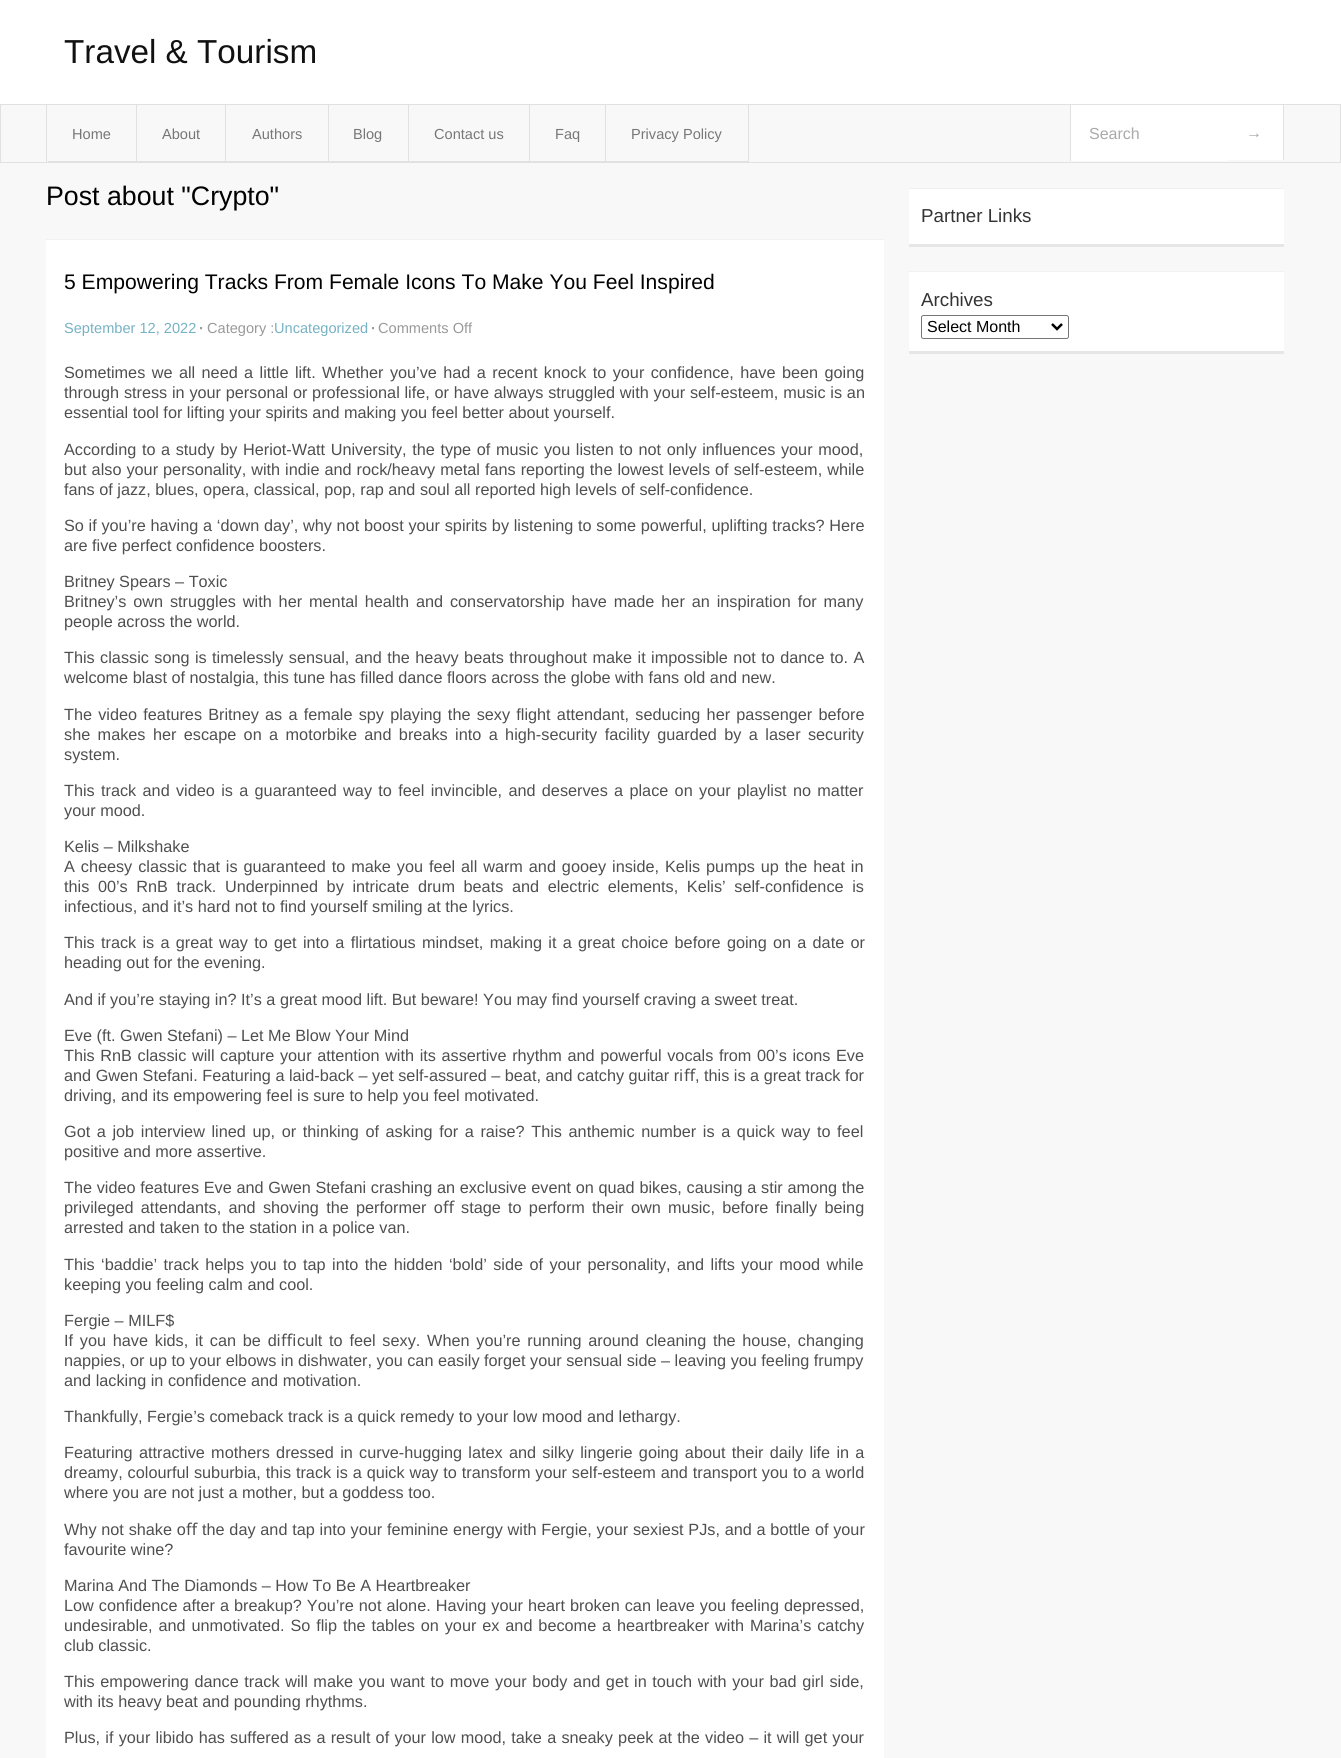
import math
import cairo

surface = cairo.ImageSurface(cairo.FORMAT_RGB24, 1341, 1758)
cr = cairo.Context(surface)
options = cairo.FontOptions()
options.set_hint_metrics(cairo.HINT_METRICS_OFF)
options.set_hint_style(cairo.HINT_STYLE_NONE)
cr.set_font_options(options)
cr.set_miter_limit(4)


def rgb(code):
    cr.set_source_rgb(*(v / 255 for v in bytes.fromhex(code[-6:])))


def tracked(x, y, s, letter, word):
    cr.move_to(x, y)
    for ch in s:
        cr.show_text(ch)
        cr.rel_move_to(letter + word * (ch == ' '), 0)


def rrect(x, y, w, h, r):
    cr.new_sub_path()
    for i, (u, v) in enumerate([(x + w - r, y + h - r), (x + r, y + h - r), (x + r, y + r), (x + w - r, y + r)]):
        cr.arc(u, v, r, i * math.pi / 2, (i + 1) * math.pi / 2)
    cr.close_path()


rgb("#f8f8f8")
cr.paint()
rgb("#ffffff")
cr.rectangle(0, 0, 1341, 104)
cr.fill()
cr.rectangle(0.5, 104.5, 1340, 58)
rgb("#e1e1e1")
cr.set_line_width(1)
cr.stroke()
for x, y, w, h, color in [
    (46, 105, 1, 58, "#e1e1e1"),
    (136, 105, 1, 58, "#e1e1e1"),
    (48, 161, 90, 1, "#e1e1e1"),
    (225, 105, 1, 58, "#e1e1e1"),
    (138, 161, 88, 1, "#e1e1e1"),
    (328, 105, 1, 58, "#e1e1e1"),
    (226, 161, 103, 1, "#e1e1e1"),
    (408, 105, 1, 58, "#e1e1e1"),
    (329, 161, 80, 1, "#e1e1e1"),
    (529, 105, 1, 58, "#e1e1e1"),
    (409, 161, 121, 1, "#e1e1e1"),
    (605, 105, 1, 58, "#e1e1e1"),
    (530, 161, 76, 1, "#e1e1e1"),
    (748, 105, 1, 58, "#e1e1e1"),
    (606, 161, 143, 1, "#e1e1e1"),
    (1071, 105, 157, 56, "#ffffff"),
    (1070, 105, 1, 56, "#e1e1e1"),
    (1228, 105, 55, 55, "#ffffff"),
    (1283, 105, 1, 55, "#e1e1e1"),
    (46, 240, 838, 1518, "#ffffff"),
    (46, 239, 838, 1, "#f1f1f1"),
    (909, 189, 375, 55, "#ffffff"),
    (909, 188, 375, 1, "#f1f1f1"),
    (909, 244, 375, 3, "#e6e6e6"),
    (909, 272, 375, 79, "#ffffff"),
    (909, 271, 375, 1, "#f1f1f1"),
    (909, 351, 375, 3, "#e6e6e6"),
]:
    rgb(color)
    cr.rectangle(x, y, w, h)
    cr.fill()
rrect(921.5, 315.5, 147, 23, 2)
rgb("#767676")
cr.stroke()
cr.new_path()
cr.move_to(1052, 324)
cr.line_to(1057, 329)
cr.line_to(1062, 324)
rgb("#000000")
cr.set_line_width(2.5)
cr.stroke()
cr.select_font_face("Liberation Sans")
cr.set_font_size(33.25)
rgb("#111111")
cr.move_to(64, 63)
cr.show_text("Travel & Tourism")
cr.set_font_size(14.6)
rgb("#777777")
for x, y, s in [
    (72, 139, "Home"),
    (162, 139, "About"),
    (252, 139, "Authors"),
    (353, 139, "Blog"),
    (434, 139, "Contact us"),
    (555, 139, "Faq"),
    (631, 139, "Privacy Policy"),
]:
    cr.move_to(x, y)
    cr.show_text(s)
cr.set_font_size(16)
rgb("#aaaaaa")
cr.move_to(1089, 139)
cr.show_text("Search")
cr.move_to(1246, 138)
cr.show_text("→")
cr.set_font_size(26.75)
rgb("#000000")
cr.move_to(46, 205)
cr.show_text("Post about \"Crypto\"")
cr.set_font_size(21.1)
cr.move_to(64, 289)
cr.show_text("5 Empowering Tracks From Female Icons To Make You Feel Inspired")
cr.set_font_size(14.6)
rgb("#76b2c4")
cr.move_to(64, 333)
cr.show_text("September 12, 2022")
cr.select_font_face("Liberation Sans", cairo.FONT_SLANT_NORMAL, cairo.FONT_WEIGHT_BOLD)
rgb("#999999")
cr.move_to(199, 333)
cr.show_text("·")
cr.select_font_face("Liberation Sans")
cr.move_to(207, 333)
cr.show_text("Category :")
rgb("#76b2c4")
cr.move_to(274, 333)
cr.show_text("Uncategorized")
cr.select_font_face("Liberation Sans", cairo.FONT_SLANT_NORMAL, cairo.FONT_WEIGHT_BOLD)
rgb("#999999")
cr.move_to(371, 333)
cr.show_text("·")
cr.select_font_face("Liberation Sans")
cr.move_to(378, 333)
cr.show_text("Comments Off")
cr.set_font_size(16.25)
rgb("#4f4f4f")
tracked(64, 378, "Sometimes we all need a little lift. Whether you’ve had a recent knock to your confidence, have been going", 0, 1.9)
tracked(64, 398, "through stress in your personal or professional life, or have always struggled with your self-esteem, music is an", 0, 0.25)
cr.move_to(64, 418)
cr.show_text("essential tool for lifting your spirits and making you feel better about yourself.")
tracked(64, 455, "According to a study by Heriot-Watt University, the type of music you listen to not only influences your mood,", 0, 1.1)
tracked(64, 475, "but also your personality, with indie and rock/heavy metal fans reporting the lowest levels of self-esteem, while", 0, 0.5)
cr.move_to(64, 495)
cr.show_text("fans of jazz, blues, opera, classical, pop, rap and soul all reported high levels of self-confidence.")
tracked(64, 531, "So if you’re having a ‘down day’, why not boost your spirits by listening to some powerful, uplifting tracks? Here", 0, 0.2)
cr.move_to(64, 551)
cr.show_text("are five perfect confidence boosters.")
cr.move_to(64, 587)
cr.show_text("Britney Spears – Toxic")
tracked(64, 607, "Britney’s own struggles with her mental health and conservatorship have made her an inspiration for many", 0, 2.4)
cr.move_to(64, 627)
cr.show_text("people across the world.")
tracked(64, 663, "This classic song is timelessly sensual, and the heavy beats throughout make it impossible not to dance to. A", 0, 0.9)
cr.move_to(64, 683)
cr.show_text("welcome blast of nostalgia, this tune has filled dance floors across the globe with fans old and new.")
tracked(64, 720, "The video features Britney as a female spy playing the sexy flight attendant, seducing her passenger before", 0, 1.7)
tracked(64, 740, "she makes her escape on a motorbike and breaks into a high-security facility guarded by a laser security", 0, 2.9)
cr.move_to(64, 760)
cr.show_text("system.")
tracked(64, 796, "This track and video is a guaranteed way to feel invincible, and deserves a place on your playlist no matter", 0, 1.8)
cr.move_to(64, 816)
cr.show_text("your mood.")
cr.move_to(64, 852)
cr.show_text("Kelis – Milkshake")
tracked(64, 872, "A cheesy classic that is guaranteed to make you feel all warm and gooey inside, Kelis pumps up the heat in", 0, 1.4)
tracked(64, 892, "this 00’s RnB track. Underpinned by intricate drum beats and electric elements, Kelis’ self-confidence is", 0, 4.1)
cr.move_to(64, 912)
cr.show_text("infectious, and it’s hard not to find yourself smiling at the lyrics.")
tracked(64, 948, "This track is a great way to get into a flirtatious mindset, making it a great choice before going on a date or", 0, 1.75)
for x, y, s in [
    (64, 968, "heading out for the evening."),
    (64, 1005, "And if you’re staying in? It’s a great mood lift. But beware! You may find yourself craving a sweet treat."),
    (64, 1041, "Eve (ft. Gwen Stefani) – Let Me Blow Your Mind"),
]:
    cr.move_to(x, y)
    cr.show_text(s)
tracked(64, 1061, "This RnB classic will capture your attention with its assertive rhythm and powerful vocals from 00’s icons Eve", 0, 1.1)
cr.move_to(64, 1081)
cr.show_text("and Gwen Stefani. Featuring a laid-back – yet self-assured – beat, and catchy guitar ri")
cr.select_font_face("Noto Sans")
cr.move_to(684, 1081)
cr.show_text("ﬀ")
cr.select_font_face("Liberation Sans")
cr.move_to(695, 1081)
cr.show_text(", this is a great track for")
cr.move_to(64, 1101)
cr.show_text("driving, and its empowering feel is sure to help you feel motivated.")
tracked(64, 1137, "Got a job interview lined up, or thinking of asking for a raise? This anthemic number is a quick way to feel", 0, 2.1)
cr.move_to(64, 1157)
cr.show_text("positive and more assertive.")
tracked(64, 1193, "The video features Eve and Gwen Stefani crashing an exclusive event on quad bikes, causing a stir among the", 0, 0.2)
tracked(64, 1213, "privileged attendants, and shoving the performer o", 0, 2.75)
cr.select_font_face("Noto Sans")
cr.move_to(443, 1213)
cr.show_text("ﬀ")
cr.select_font_face("Liberation Sans")
tracked(461, 1213, "stage to perform their own music, before finally being", 0, 2.75)
cr.move_to(64, 1233)
cr.show_text("arrested and taken to the station in a police van.")
tracked(64, 1270, "This ‘baddie’ track helps you to tap into the hidden ‘bold’ side of your personality, and lifts your mood while", 0, 1.9)
cr.move_to(64, 1290)
cr.show_text("keeping you feeling calm and cool.")
cr.move_to(64, 1326)
cr.show_text("Fergie – MILF$")
tracked(64, 1346, "If you have kids, it can be di", 0, 2.25)
cr.select_font_face("Noto Sans")
cr.move_to(281, 1346)
cr.show_text("ﬃ")
cr.select_font_face("Liberation Sans")
tracked(297, 1346, "cult to feel sexy. When you’re running around cleaning the house, changing", 0, 2.25)
for x, y, s in [
    (64, 1366, "nappies, or up to your elbows in dishwater, you can easily forget your sensual side – leaving you feeling frumpy"),
    (64, 1386, "and lacking in confidence and motivation."),
    (64, 1422, "Thankfully, Fergie’s comeback track is a quick remedy to your low mood and lethargy."),
]:
    cr.move_to(x, y)
    cr.show_text(s)
tracked(64, 1458, "Featuring attractive mothers dressed in curve-hugging latex and silky lingerie going about their daily life in a", 0, 1.75)
tracked(64, 1478, "dreamy, colourful suburbia, this track is a quick way to transform your self-esteem and transport you to a world", 0, 0.4)
cr.move_to(64, 1498)
cr.show_text("where you are not just a mother, but a goddess too.")
tracked(64, 1535, "Why not shake o", 0, 0.25)
cr.select_font_face("Noto Sans")
cr.move_to(186, 1535)
cr.show_text("ﬀ")
cr.select_font_face("Liberation Sans")
tracked(202, 1535, "the day and tap into your feminine energy with Fergie, your sexiest PJs, and a bottle of your", 0, 0.25)
cr.move_to(64, 1555)
cr.show_text("favourite wine?")
cr.move_to(64, 1591)
cr.show_text("Marina And The Diamonds – How To Be A Heartbreaker")
tracked(64, 1611, "Low confidence after a breakup? You’re not alone. Having your heart broken can leave you feeling depressed,", 0, 0.5)
tracked(64, 1631, "undesirable, and unmotivated. So flip the tables on your ex and become a heartbreaker with Marina’s catchy", 0, 1.4)
cr.move_to(64, 1651)
cr.show_text("club classic.")
tracked(64, 1687, "This empowering dance track will make you want to move your body and get in touch with your bad girl side,", 0, 1.1)
cr.move_to(64, 1707)
cr.show_text("with its heavy beat and pounding rhythms.")
tracked(64, 1743, "Plus, if your libido has suffered as a result of your low mood, take a sneaky peek at the video – it will get your", 0, 0.7)
cr.set_font_size(18.75)
rgb("#333333")
cr.move_to(921, 222)
cr.show_text("Partner Links")
cr.move_to(921, 306)
cr.show_text("Archives")
cr.set_font_size(16)
rgb("#000000")
cr.move_to(927, 332)
cr.show_text("Select Month")
surface.write_to_png("page.png")
